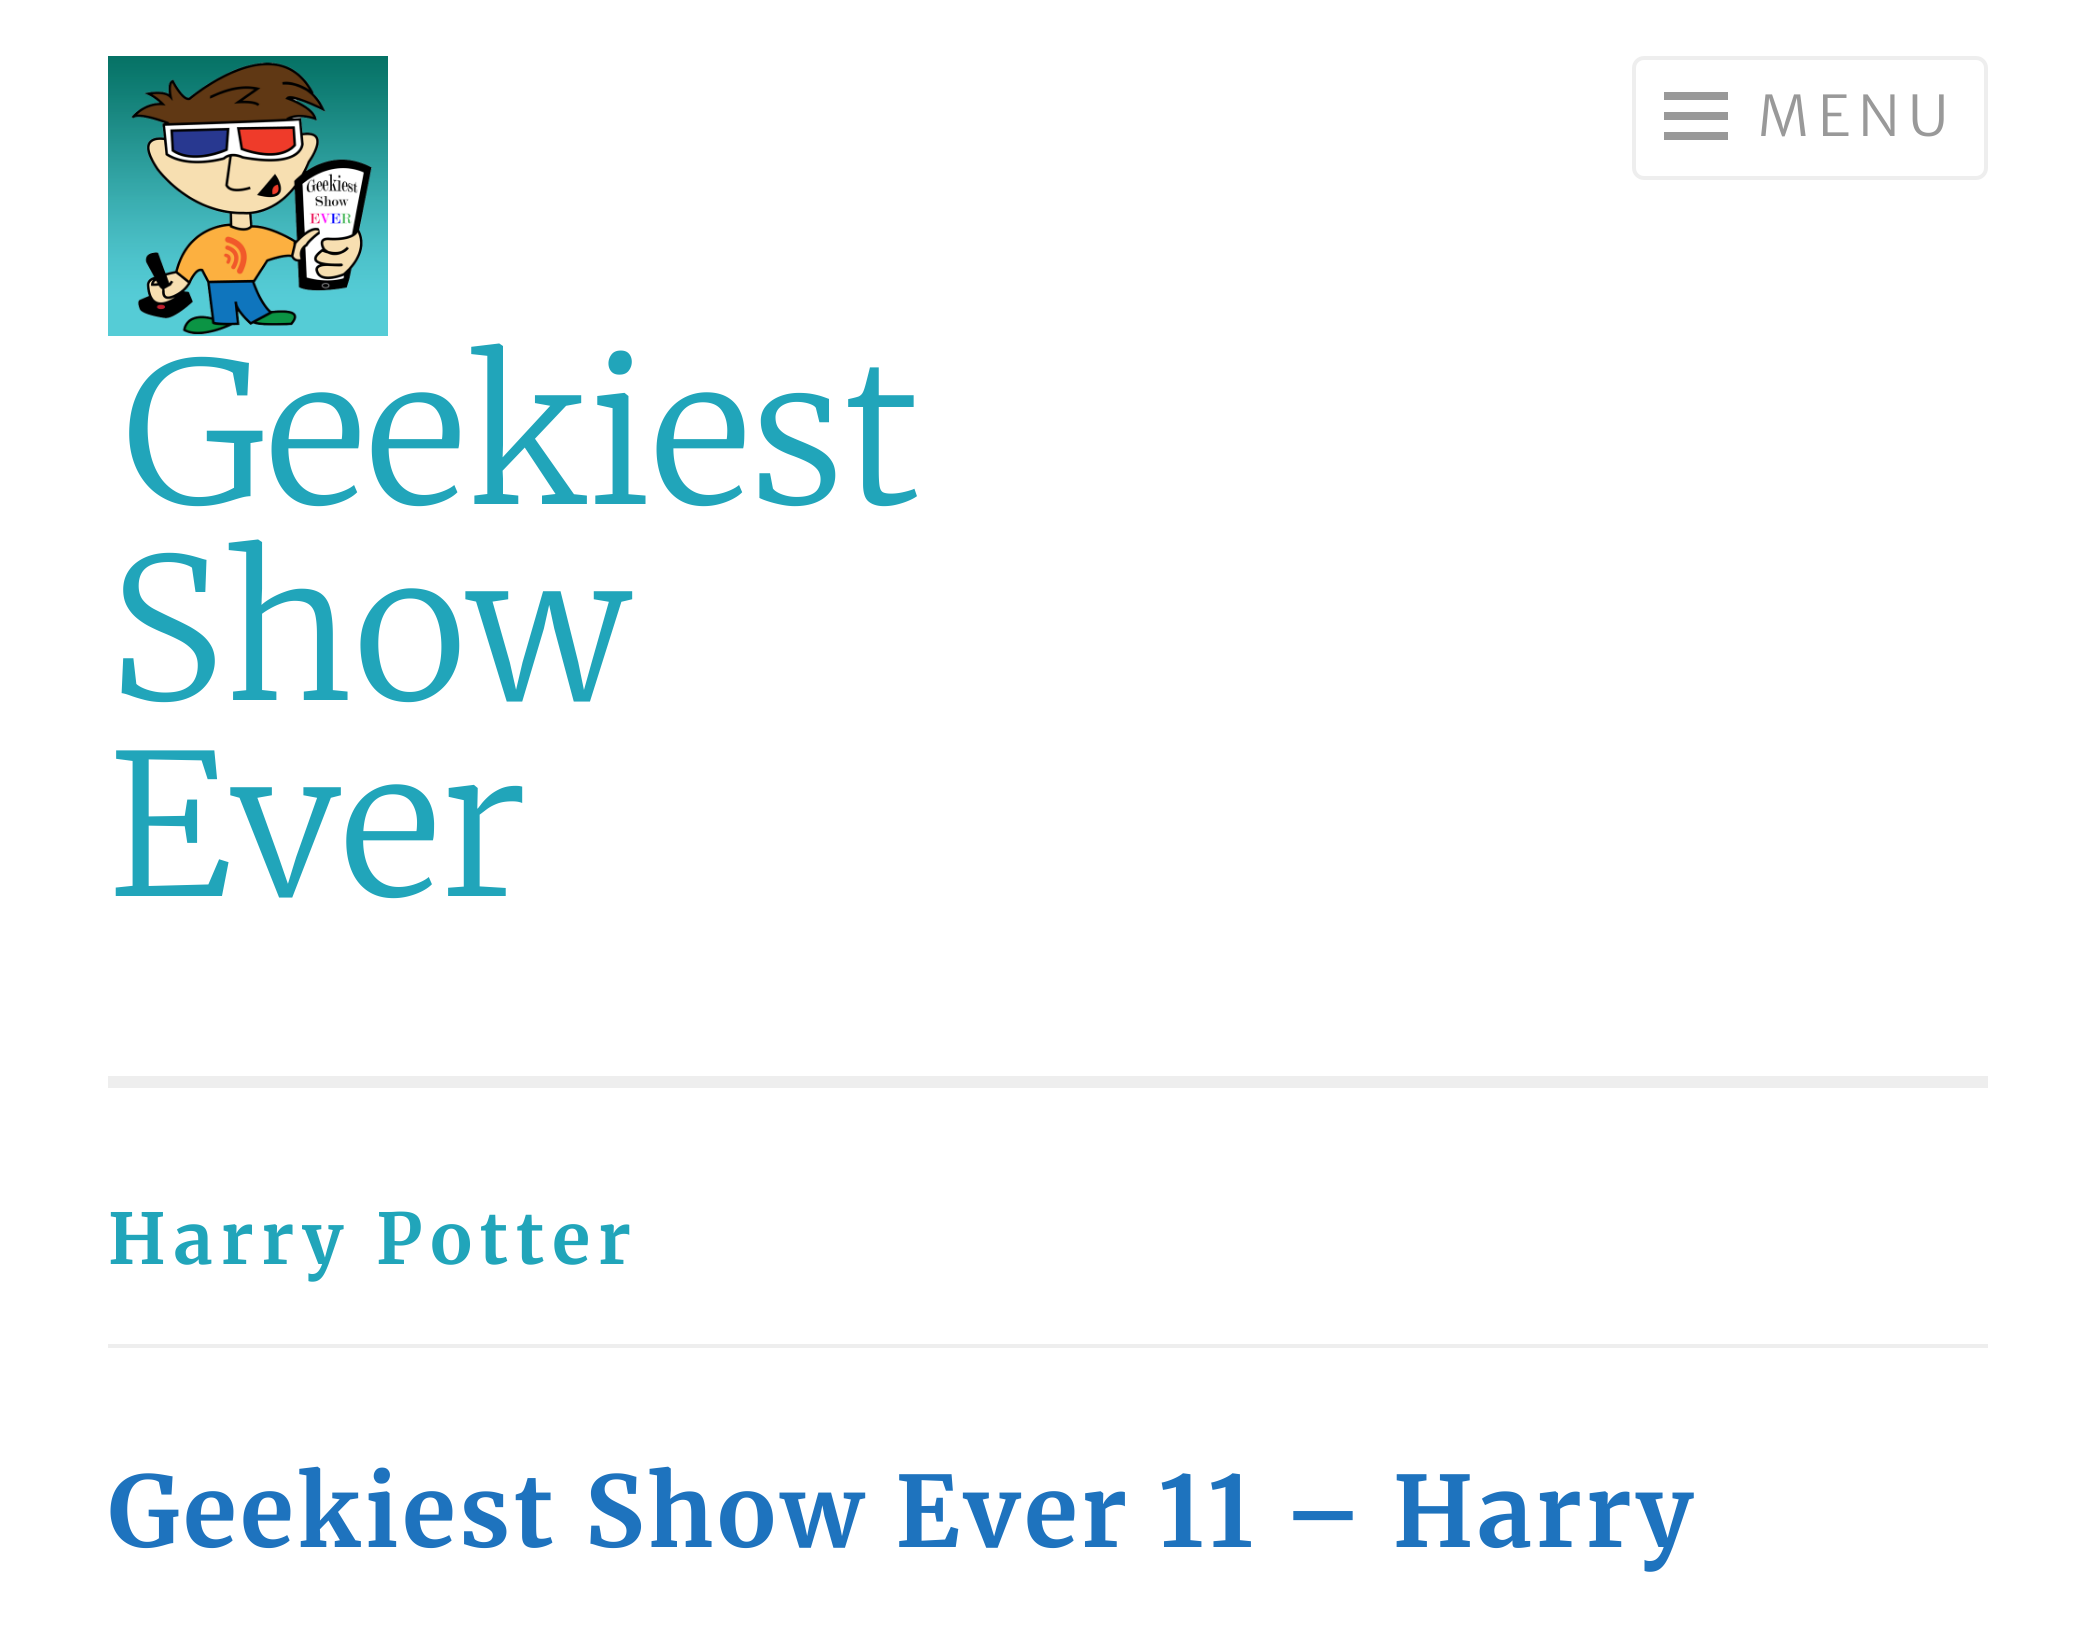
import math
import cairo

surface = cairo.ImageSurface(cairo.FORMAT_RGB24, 2094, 1639)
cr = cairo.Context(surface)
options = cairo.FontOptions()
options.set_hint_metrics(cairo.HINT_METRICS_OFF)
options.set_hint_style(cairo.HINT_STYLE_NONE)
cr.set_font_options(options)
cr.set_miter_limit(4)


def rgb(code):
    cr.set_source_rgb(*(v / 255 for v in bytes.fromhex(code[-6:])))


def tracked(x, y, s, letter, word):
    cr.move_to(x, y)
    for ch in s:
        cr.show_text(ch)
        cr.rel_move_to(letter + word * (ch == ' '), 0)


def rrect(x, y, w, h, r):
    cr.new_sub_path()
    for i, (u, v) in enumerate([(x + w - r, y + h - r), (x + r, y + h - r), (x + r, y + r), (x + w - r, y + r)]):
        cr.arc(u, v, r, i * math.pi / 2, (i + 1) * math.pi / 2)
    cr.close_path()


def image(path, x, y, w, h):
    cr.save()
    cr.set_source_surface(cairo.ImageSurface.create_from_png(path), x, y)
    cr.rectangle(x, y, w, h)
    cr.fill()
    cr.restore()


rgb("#ffffff")
cr.paint()
rgb("#eeeeee")
cr.rectangle(108, 1076, 1880, 12)
cr.fill()
rrect(1634, 58, 352, 120, 10)
cr.set_line_width(4)
cr.stroke()
rgb("#999999")
cr.new_path()
cr.move_to(1664, 140)
cr.line_to(1664, 132)
cr.line_to(1728, 132)
cr.line_to(1728, 140)
cr.close_path()
cr.move_to(1664, 92)
cr.line_to(1728, 92)
cr.line_to(1728, 100)
cr.line_to(1664, 100)
cr.close_path()
cr.move_to(1664, 120)
cr.line_to(1664, 112)
cr.line_to(1728, 112)
cr.line_to(1728, 120)
cr.close_path()
cr.fill()
image("img/1.png", 108, 56, 280, 280)
rgb("#eeeeee")
cr.rectangle(108, 1344, 1880, 4)
cr.fill()
cr.select_font_face("Merriweather Sans Light")
cr.set_font_size(56)
rgb("#999999")
tracked(1757, 136, "MENU", 8, 0)
cr.select_font_face("Merriweather Light")
cr.set_font_size(196)
rgb("#21a5ba")
for x, y, s in [
    (124, 504, "Geekiest"),
    (108, 700, "Show"),
    (108, 896, "Ever"),
]:
    tracked(x, y, s, 0.5, 0)
cr.select_font_face("Merriweather", cairo.FONT_SLANT_NORMAL, cairo.FONT_WEIGHT_BOLD)
cr.set_font_size(70)
tracked(108, 1264, "Harry Potter", 8, 0)
cr.set_font_size(98)
rgb("#1e73be")
tracked(108, 1547, "Geekiest Show Ever 11 – Harry", 4, 0)
surface.write_to_png("page.png")
